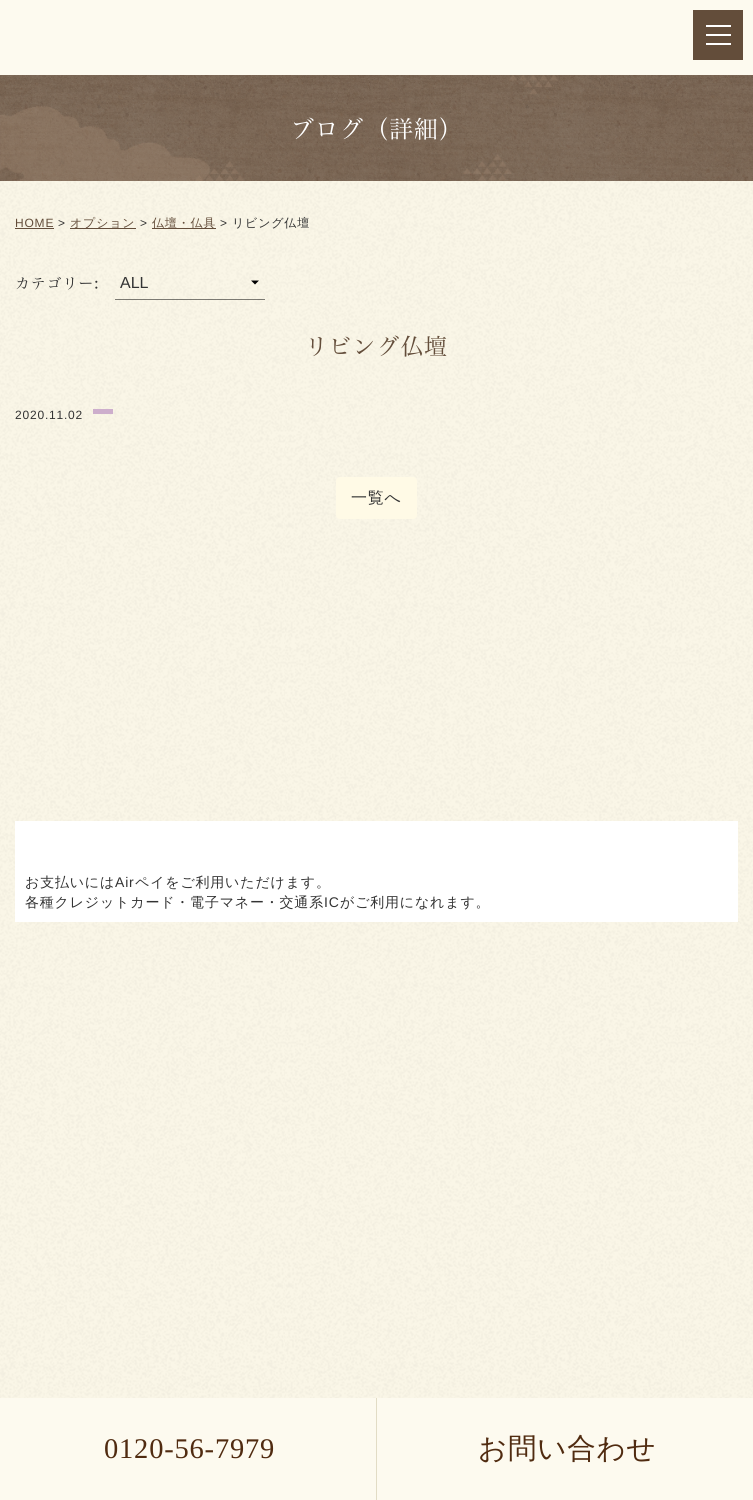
import math
import cairo

surface = cairo.ImageSurface(cairo.FORMAT_RGB24, 753, 1500)
cr = cairo.Context(surface)
options = cairo.FontOptions()
options.set_hint_metrics(cairo.HINT_METRICS_OFF)
options.set_hint_style(cairo.HINT_STYLE_NONE)
cr.set_font_options(options)
cr.set_miter_limit(4)


def rgb(code):
    cr.set_source_rgb(*(v / 255 for v in bytes.fromhex(code[-6:])))


def tracked(x, y, s, letter, word):
    cr.move_to(x, y)
    for ch in s:
        cr.show_text(ch)
        cr.rel_move_to(letter + word * (ch == ' '), 0)


def rrect(x, y, w, h, r):
    cr.new_sub_path()
    for i, (u, v) in enumerate([(x + w - r, y + h - r), (x + r, y + h - r), (x + r, y + r), (x + w - r, y + r)]):
        cr.arc(u, v, r, i * math.pi / 2, (i + 1) * math.pi / 2)
    cr.close_path()


def image(path, x, y, w, h):
    cr.save()
    cr.set_source_surface(cairo.ImageSurface.create_from_png(path), x, y)
    cr.rectangle(x, y, w, h)
    cr.fill()
    cr.restore()


rgb("#ffffff")
cr.paint()
image("img/1.png", 0, 181, 753, 1217)
for x, y, w, h, color in [
    (0, 0, 753, 75, "#fdfaef"),
    (693, 10, 50, 50, "#634d3a"),
    (706, 25, 25, 2, "#ffffff"),
    (706, 34, 25, 2, "#ffffff"),
    (706, 43, 25, 2, "#ffffff"),
]:
    rgb(color)
    cr.rectangle(x, y, w, h)
    cr.fill()
image("img/2.png", 0, 75, 753, 106)
for x, y, w, h, color in [
    (15, 228, 39, 1, "#634d3a"),
    (70, 228, 66, 1, "#634d3a"),
    (152, 228, 64, 1, "#634d3a"),
]:
    rgb(color)
    cr.rectangle(x, y, w, h)
    cr.fill()
rgb("#000000")
cr.new_path()
cr.move_to(251, 280.5)
cr.line_to(255, 284.5)
cr.line_to(259, 280.5)
cr.close_path()
cr.fill()
cr.set_source_rgba(0, 0, 0, 0.5)
cr.rectangle(115, 299, 150, 1)
cr.fill()
rgb("#cdaecc")
cr.rectangle(93, 409, 20, 5)
cr.fill()
rgb("#fffae6")
rrect(336, 477, 81, 42, 4)
cr.fill()
for x, y, w, h, color in [
    (15, 821, 723, 101, "#ffffff"),
    (0, 1398, 753, 102, "#fdfaef"),
    (376, 1398, 1, 102, "#e2dcc5"),
]:
    rgb(color)
    cr.rectangle(x, y, w, h)
    cr.fill()
cr.select_font_face("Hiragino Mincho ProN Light")
cr.set_font_size(24)
rgb("#ffffff")
tracked(290, 138, "ブログ（詳細）", 0.8, 0)
cr.select_font_face("Liberation Sans")
cr.set_font_size(12)
rgb("#634d3a")
tracked(15, 227, "HOME", 0.8, 0)
rgb("#333333")
tracked(58, 227, ">", 0.8, 0)
cr.select_font_face("WenQuanYi Zen Hei Medium")
rgb("#634d3a")
tracked(70, 227, "オプション", 0.8, 0)
cr.select_font_face("Liberation Sans")
rgb("#333333")
tracked(140, 227, ">", 0.8, 0)
cr.select_font_face("WenQuanYi Zen Hei Medium")
rgb("#634d3a")
tracked(152, 227, "仏壇・仏具", 0.8, 0)
cr.select_font_face("Liberation Sans")
rgb("#333333")
tracked(220, 227, ">", 0.8, 0)
cr.select_font_face("WenQuanYi Zen Hei Medium")
tracked(232, 227, "リビング仏壇", 0.8, 0)
cr.select_font_face("Hiragino Mincho ProN Light")
cr.set_font_size(15)
tracked(15, 289, "カテゴリー:", 0.8, 0)
cr.select_font_face("Liberation Sans")
cr.set_font_size(16)
cr.move_to(120, 288)
cr.show_text("ALL")
cr.select_font_face("Hiragino Mincho ProN Light")
cr.set_font_size(23)
rgb("#634d3a")
tracked(305, 355, "リビング仏壇", 0.8, 0)
cr.select_font_face("Liberation Sans")
cr.set_font_size(12)
rgb("#333333")
tracked(15, 419, "2020.11.02", 0.8, 0)
cr.select_font_face("WenQuanYi Zen Hei Medium")
cr.set_font_size(16)
tracked(351, 503, "一覧へ", 0.8, 0)
cr.set_font_size(14)
tracked(25, 887, "お支払いには", 0.8, 0)
cr.select_font_face("Liberation Sans")
tracked(115, 887, "Air", 0.8, 0)
cr.select_font_face("WenQuanYi Zen Hei Medium")
tracked(135, 887, "ペイをご利用いただけます。", 0.8, 0)
tracked(25, 907, "各種クレジットカード・電子マネー・交通系", 0.8, 0)
cr.select_font_face("Liberation Sans")
tracked(324, 907, "IC", 0.8, 0)
cr.select_font_face("WenQuanYi Zen Hei Medium")
tracked(340, 907, "がご利用になれます。", 0.8, 0)
cr.select_font_face("Liberation Serif")
cr.set_font_size(28.5)
rgb("#502b10")
tracked(104, 1458, "0120-56-7979", 0.8, 0)
cr.select_font_face("WenQuanYi Zen Hei Medium")
tracked(478, 1458, "お問い合わせ", 0.8, 0)
surface.write_to_png("page.png")
